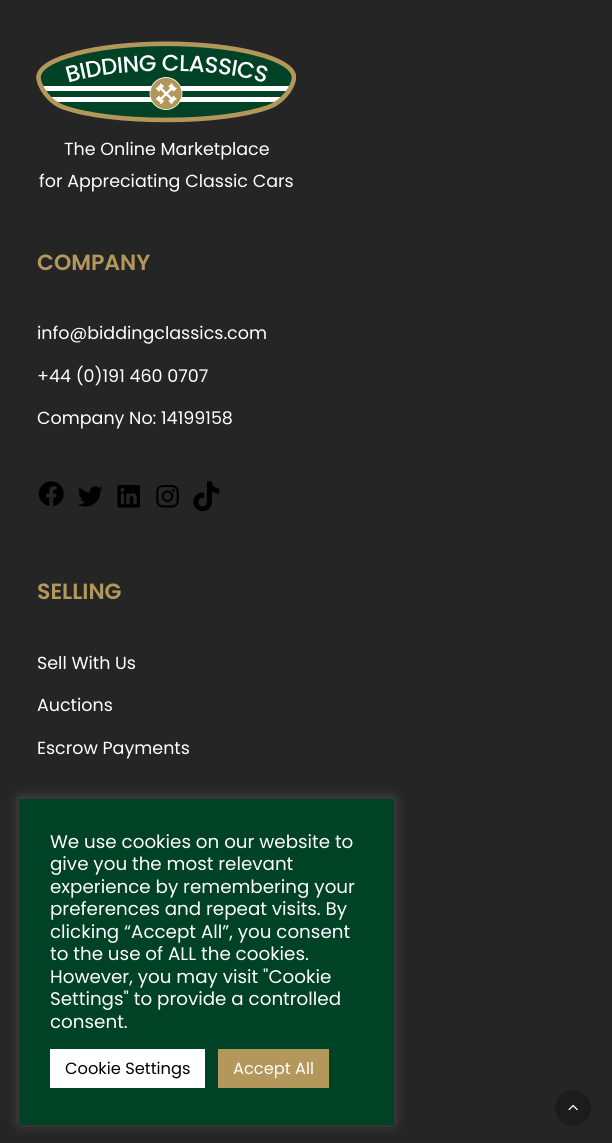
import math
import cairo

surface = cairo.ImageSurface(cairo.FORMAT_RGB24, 612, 1143)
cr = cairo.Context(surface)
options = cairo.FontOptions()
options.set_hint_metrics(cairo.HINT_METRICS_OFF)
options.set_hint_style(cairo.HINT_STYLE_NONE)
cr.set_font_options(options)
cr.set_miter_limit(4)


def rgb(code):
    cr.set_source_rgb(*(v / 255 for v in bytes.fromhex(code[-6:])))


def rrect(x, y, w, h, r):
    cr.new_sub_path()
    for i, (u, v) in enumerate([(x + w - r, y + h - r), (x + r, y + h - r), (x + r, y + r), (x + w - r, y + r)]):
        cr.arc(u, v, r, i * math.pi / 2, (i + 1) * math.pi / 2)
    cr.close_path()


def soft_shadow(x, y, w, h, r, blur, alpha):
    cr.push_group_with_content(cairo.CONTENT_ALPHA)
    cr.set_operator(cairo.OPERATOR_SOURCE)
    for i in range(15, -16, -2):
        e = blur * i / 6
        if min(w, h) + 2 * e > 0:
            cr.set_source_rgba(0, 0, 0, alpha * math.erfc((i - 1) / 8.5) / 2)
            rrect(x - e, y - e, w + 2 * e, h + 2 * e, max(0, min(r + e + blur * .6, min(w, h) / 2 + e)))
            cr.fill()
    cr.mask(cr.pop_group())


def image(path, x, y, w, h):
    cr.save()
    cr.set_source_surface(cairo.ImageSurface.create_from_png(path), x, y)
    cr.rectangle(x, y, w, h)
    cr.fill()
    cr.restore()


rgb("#252525")
cr.paint()
image("img/1.png", 36, 41, 260, 82)
image("img/2.png", 38, 481, 26, 25)
image("img/3.png", 78, 486, 25, 21)
image("img/4.png", 117, 485, 23, 23)
image("img/5.png", 156, 485, 23, 23)
image("img/6.png", 193, 481, 27, 30)
rgb("#1c1c1c")
cr.arc(573, 1108, 18, 0, 2 * math.pi)
cr.fill()
image("img/7.png", 568, 1104, 10, 7)
rgb("#acabab")
soft_shadow(19, 798, 375, 326, 0, 6, 0.3)
for x, y, w, h, color in [
    (19, 799, 375, 326, "#004225"),
    (50, 1049, 155, 39, "#ffffff"),
    (218, 1049, 111, 39, "#b4975a"),
]:
    rgb(color)
    cr.rectangle(x, y, w, h)
    cr.fill()
cr.select_font_face("Poppins")
cr.set_font_size(17.5)
rgb("#ffffff")
cr.move_to(64, 155)
cr.show_text("The Online Marketplace")
cr.move_to(39, 187)
cr.show_text("for Appreciating Classic Cars")
cr.select_font_face("Poppins SemiBold")
cr.set_font_size(22)
rgb("#b4975a")
cr.move_to(37, 270)
cr.show_text("COMPANY")
cr.select_font_face("Poppins")
cr.set_font_size(17.5)
rgb("#ffffff")
for x, y, s in [
    (37, 339, "info@biddingclassics.com"),
    (37, 382, "+44 (0)191 460 0707"),
    (37, 424, "Company No: 14199158"),
]:
    cr.move_to(x, y)
    cr.show_text(s)
cr.select_font_face("Poppins SemiBold")
cr.set_font_size(22)
rgb("#b4975a")
cr.move_to(37, 599)
cr.show_text("SELLING")
cr.select_font_face("Poppins")
cr.set_font_size(17.5)
rgb("#ffffff")
for x, y, s in [
    (37, 669, "Sell With Us"),
    (37, 711, "Auctions"),
    (37, 754, "Escrow Payments"),
]:
    cr.move_to(x, y)
    cr.show_text(s)
cr.set_font_size(18.3)
for x, y, s in [
    (50, 848, "We use cookies on our website to"),
    (50, 870, "give you the most relevant"),
    (50, 893, "experience by remembering your"),
    (50, 915, "preferences and repeat visits. By"),
    (50, 938, "clicking “Accept All”, you consent"),
    (50, 960, "to the use of ALL the cookies."),
    (50, 983, "However, you may visit \"Cookie"),
    (50, 1005, "Settings\" to provide a controlled"),
    (50, 1028, "consent."),
]:
    cr.move_to(x, y)
    cr.show_text(s)
cr.set_font_size(16.25)
rgb("#000000")
cr.move_to(65, 1074)
cr.show_text("Cookie Settings")
rgb("#ffffff")
cr.move_to(233, 1074)
cr.show_text("Accept All")
surface.write_to_png("page.png")
